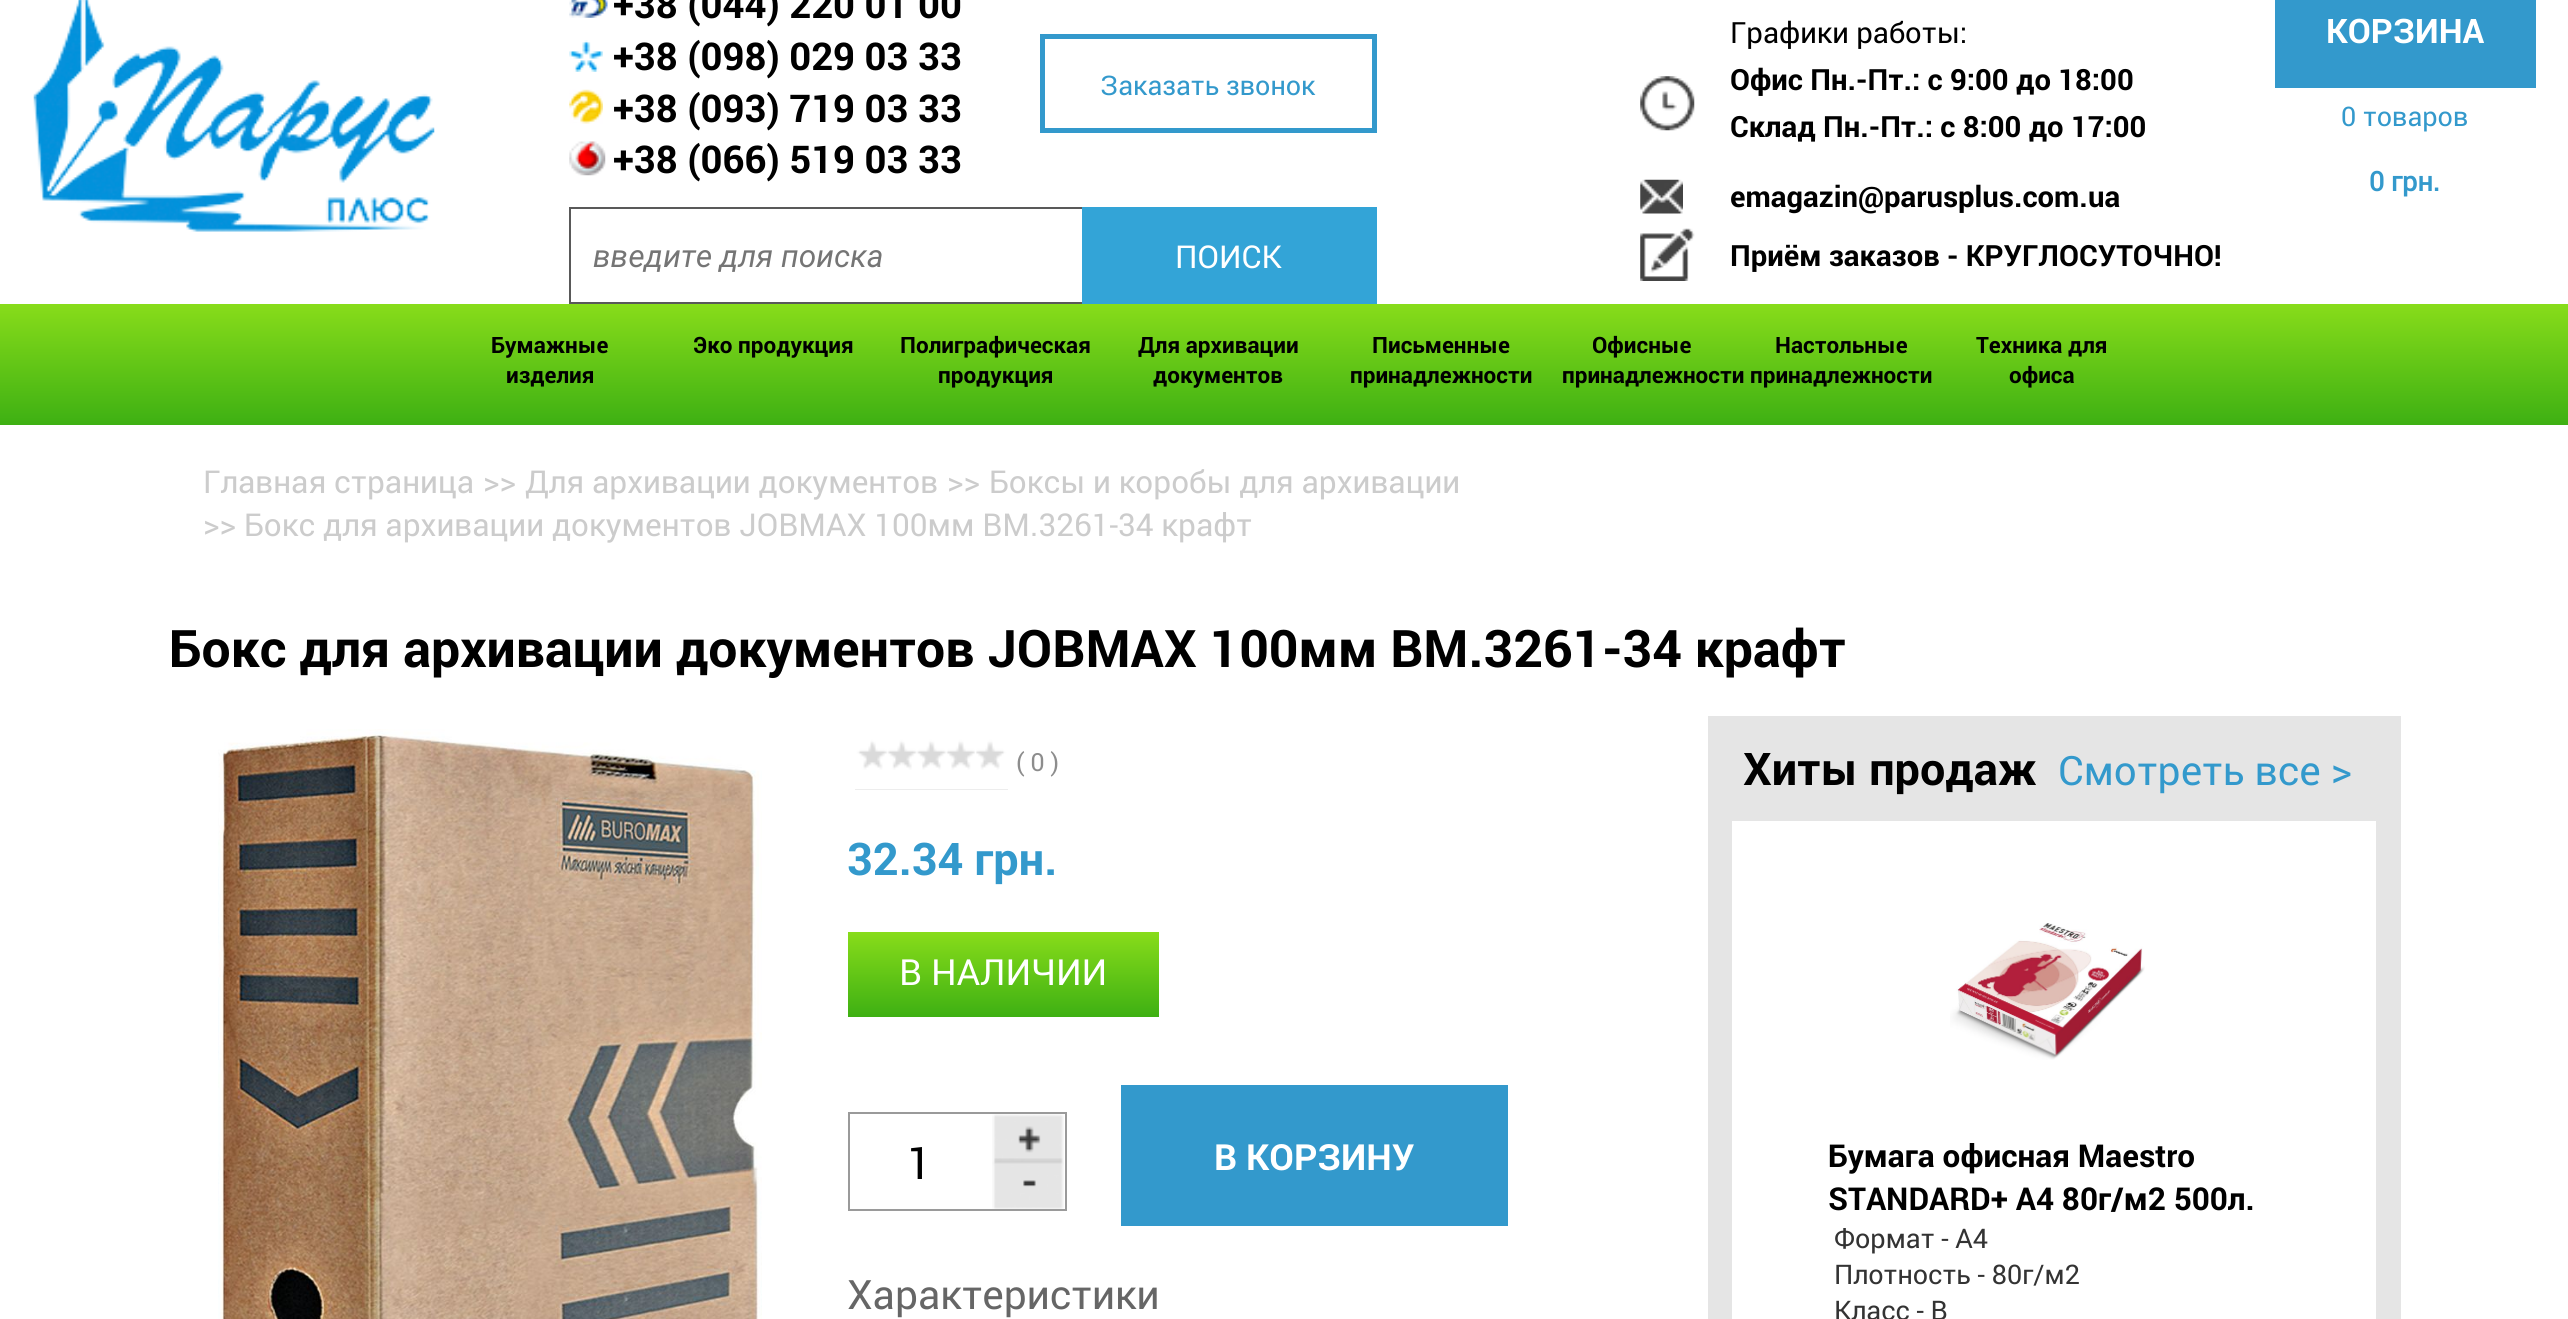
import math
import cairo

surface = cairo.ImageSurface(cairo.FORMAT_RGB24, 2568, 1319)
cr = cairo.Context(surface)
options = cairo.FontOptions()
options.set_hint_metrics(cairo.HINT_METRICS_OFF)
options.set_hint_style(cairo.HINT_STYLE_NONE)
cr.set_font_options(options)
cr.set_miter_limit(4)


def rgb(code):
    cr.set_source_rgb(*(v / 255 for v in bytes.fromhex(code[-6:])))


def image(path, x, y, w, h):
    cr.save()
    cr.set_source_surface(cairo.ImageSurface.create_from_png(path), x, y)
    cr.rectangle(x, y, w, h)
    cr.fill()
    cr.restore()


rgb("#ffffff")
cr.paint()
image("img/1.png", 33, 0, 402, 232)
image("img/2.png", 569, 0, 39, 18)
image("img/3.png", 569, 40, 34, 32)
image("img/4.png", 569, 89, 34, 35)
image("img/5.png", 569, 141, 37, 35)
cr.rectangle(1042.5, 36.5, 332, 94)
rgb("#3399cc")
cr.set_line_width(5)
cr.stroke()
cr.rectangle(570, 208, 806, 95)
rgb("#595959")
cr.set_line_width(2)
cr.stroke()
rgb("#33a4d7")
cr.rectangle(1082, 207, 295, 97)
cr.fill()
image("img/6.png", 1640, 76, 55, 55)
image("img/7.png", 1640, 179, 43, 35)
image("img/8.png", 1640, 228, 55, 53)
rgb("#3399cc")
cr.rectangle(2275, 0, 261, 88)
cr.fill()
gradient = cairo.LinearGradient(1285, 425, 1285, 304)
gradient.add_color_stop_rgba(0, 0.243, 0.69, 0.075, 1)
gradient.add_color_stop_rgba(1, 0.533, 0.863, 0.102, 1)
cr.set_source(gradient)
cr.rectangle(0, 304, 2568, 121)
cr.fill()
image("img/9.png", 218, 729, 544, 590)
rgb("#dadada")
cr.rectangle(855, 739, 153, 51)
cr.fill()
image("img/10.png", 855, 722, 153, 68)
gradient = cairo.LinearGradient(1004, 1017, 1004, 932)
gradient.add_color_stop_rgba(0, 0.243, 0.69, 0.075, 1)
gradient.add_color_stop_rgba(1, 0.533, 0.863, 0.102, 1)
cr.set_source(gradient)
cr.rectangle(848, 932, 311, 85)
cr.fill()
image("img/11.png", 992, 1114, 72, 95)
cr.rectangle(849, 1113, 217, 97)
rgb("#9a9a9a")
cr.stroke()
for x, y, w, h, color in [
    (1121, 1085, 387, 141, "#3399cc"),
    (1708, 716, 693, 603, "#e5e5e5"),
    (1732, 821, 644, 498, "#ffffff"),
]:
    rgb(color)
    cr.rectangle(x, y, w, h)
    cr.fill()
image("img/12.png", 1950, 923, 195, 137)
cr.select_font_face("Roboto", cairo.FONT_SLANT_NORMAL, cairo.FONT_WEIGHT_BOLD)
cr.set_font_size(38.25)
rgb("#000000")
for x, y, s in [
    (613, 18, "+38 (044) 220 01 00"),
    (613, 70, "+38 (098) 029 03 33"),
    (613, 122, "+38 (093) 719 03 33"),
    (613, 173, "+38 (066) 519 03 33"),
]:
    cr.move_to(x, y)
    cr.show_text(s)
cr.select_font_face("Roboto")
cr.set_font_size(27)
rgb("#3399cc")
cr.move_to(1100, 95)
cr.show_text("Заказать звонок")
cr.select_font_face("Roboto", cairo.FONT_SLANT_ITALIC)
cr.set_font_size(31.5)
rgb("#757575")
cr.move_to(593, 267)
cr.show_text("введите для поиска")
cr.select_font_face("Roboto")
rgb("#ffffff")
cr.move_to(1175, 268)
cr.show_text("ПОИСК")
cr.set_font_size(29.25)
rgb("#000000")
cr.move_to(1730, 43)
cr.show_text("Графики работы:")
cr.select_font_face("Roboto", cairo.FONT_SLANT_NORMAL, cairo.FONT_WEIGHT_BOLD)
for x, y, s in [
    (1730, 90, "Офис Пн.-Пт.: с 9:00 до 18:00"),
    (1730, 137, "Склад Пн.-Пт.: с 8:00 до 17:00"),
    (1730, 207, "emagazin@parusplus.com.ua"),
    (1730, 266, "Приём заказов - КРУГЛОСУТОЧНО!"),
]:
    cr.move_to(x, y)
    cr.show_text(s)
cr.set_font_size(33.75)
rgb("#ffffff")
cr.move_to(2326, 43)
cr.show_text("КОРЗИНА")
cr.select_font_face("Roboto")
cr.set_font_size(27)
rgb("#3399cc")
cr.move_to(2341, 126)
cr.show_text("0 товаров")
cr.select_font_face("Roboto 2", cairo.FONT_SLANT_NORMAL, cairo.FONT_WEIGHT_BOLD)
cr.move_to(2369, 191)
cr.show_text("0 грн.")
cr.select_font_face("Roboto", cairo.FONT_SLANT_NORMAL, cairo.FONT_WEIGHT_BOLD)
cr.set_font_size(22.5)
rgb("#000000")
for x, y, s in [
    (491, 353, "Бумажные"),
    (506, 383, "изделия"),
    (693, 353, "Эко продукция"),
    (900, 353, "Полиграфическая"),
    (938, 383, "продукция"),
    (1138, 353, "Для архивации"),
    (1153, 383, "документов"),
    (1372, 353, "Письменные"),
    (1350, 383, "принадлежности"),
    (1592, 353, "Офисные"),
    (1562, 383, "принадлежности"),
    (1775, 353, "Настольные"),
    (1750, 383, "принадлежности"),
    (1976, 353, "Техника для"),
    (2009, 383, "офиса"),
]:
    cr.move_to(x, y)
    cr.show_text(s)
cr.select_font_face("Roboto")
cr.set_font_size(31.5)
rgb("#cccccc")
for x, y, s in [
    (203, 493, "Главная страница"),
    (483, 493, ">>"),
    (525, 493, "Для архивации документов"),
    (947, 493, ">>"),
    (989, 493, "Боксы и коробы для архивации"),
    (203, 536, ">>"),
    (244, 536, "Бокс для архивации документов JOBMAX 100мм BM.3261-34 крафт"),
]:
    cr.move_to(x, y)
    cr.show_text(s)
cr.select_font_face("Roboto", cairo.FONT_SLANT_NORMAL, cairo.FONT_WEIGHT_BOLD)
cr.set_font_size(51.75)
rgb("#000000")
cr.move_to(169, 667)
cr.show_text("Бокс для архивации документов JOBMAX 100мм BM.3261-34 крафт")
cr.select_font_face("Roboto")
cr.set_font_size(25)
rgb("#8d8d8d")
cr.move_to(1016, 771)
cr.show_text("( 0 )")
cr.select_font_face("Roboto", cairo.FONT_SLANT_NORMAL, cairo.FONT_WEIGHT_BOLD)
cr.set_font_size(45)
rgb("#3399cc")
cr.move_to(847, 875)
cr.show_text("32.34 грн.")
cr.select_font_face("Roboto")
cr.set_font_size(36)
rgb("#ffffff")
cr.move_to(899, 985)
cr.show_text("В НАЛИЧИИ")
cr.set_font_size(45)
rgb("#000000")
cr.move_to(907, 1179)
cr.show_text("1")
cr.select_font_face("Roboto", cairo.FONT_SLANT_NORMAL, cairo.FONT_WEIGHT_BOLD)
cr.set_font_size(36)
rgb("#ffffff")
cr.move_to(1214, 1170)
cr.show_text("В КОРЗИНУ")
cr.select_font_face("Roboto")
cr.set_font_size(40.5)
rgb("#666666")
cr.move_to(847, 1309)
cr.show_text("Характеристики")
cr.select_font_face("Roboto", cairo.FONT_SLANT_NORMAL, cairo.FONT_WEIGHT_BOLD)
cr.set_font_size(45)
rgb("#000000")
cr.move_to(1743, 785)
cr.show_text("Хиты продаж")
cr.select_font_face("Roboto")
cr.set_font_size(40.5)
rgb("#3399cc")
cr.move_to(2058, 785)
cr.show_text("Смотреть все >")
cr.select_font_face("Roboto", cairo.FONT_SLANT_NORMAL, cairo.FONT_WEIGHT_BOLD)
cr.set_font_size(31.5)
rgb("#000000")
cr.move_to(1828, 1167)
cr.show_text("Бумага офисная Maestro")
cr.move_to(1828, 1210)
cr.show_text("STANDARD+ А4 80г/м2 500л.")
cr.select_font_face("Roboto")
cr.set_font_size(27)
rgb("#333333")
for x, y, s in [
    (1834, 1248, "Формат - А4"),
    (1834, 1284, "Плотность - 80г/м2"),
    (1834, 1320, "Класс - B"),
]:
    cr.move_to(x, y)
    cr.show_text(s)
surface.write_to_png("page.png")
